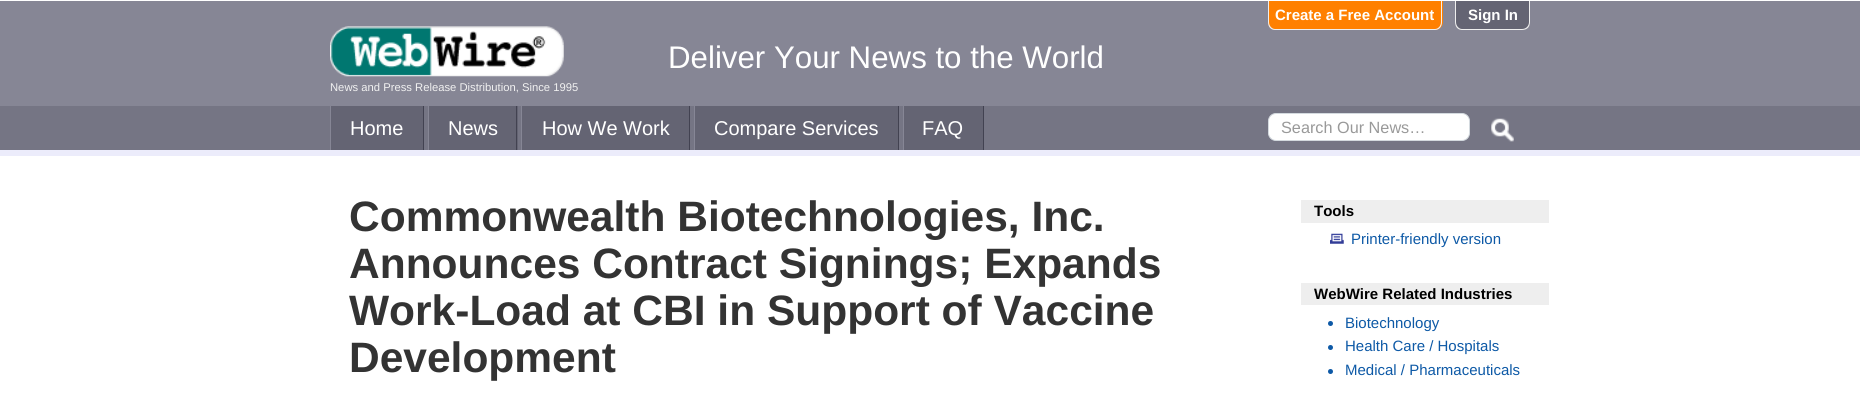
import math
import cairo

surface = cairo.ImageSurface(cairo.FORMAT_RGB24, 1860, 405)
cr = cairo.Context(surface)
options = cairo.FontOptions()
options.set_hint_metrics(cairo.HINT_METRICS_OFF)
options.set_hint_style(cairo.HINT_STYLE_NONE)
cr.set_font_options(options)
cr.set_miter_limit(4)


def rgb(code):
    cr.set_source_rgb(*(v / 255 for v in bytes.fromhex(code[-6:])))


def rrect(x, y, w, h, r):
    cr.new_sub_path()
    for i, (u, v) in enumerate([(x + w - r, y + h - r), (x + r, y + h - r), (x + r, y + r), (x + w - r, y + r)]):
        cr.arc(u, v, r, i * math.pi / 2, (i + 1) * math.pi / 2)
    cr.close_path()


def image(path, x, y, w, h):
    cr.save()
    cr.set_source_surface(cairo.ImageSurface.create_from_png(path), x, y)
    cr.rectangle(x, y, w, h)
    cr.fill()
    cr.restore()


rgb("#ffffff")
cr.paint()
rgb("#868695")
cr.rectangle(0, 1, 1860, 105)
cr.fill()
rgb("#ff8000")
cr.new_path()
cr.move_to(1268, 1)
cr.line_to(1443, 1)
cr.line_to(1443, 22)
cr.curve_to(1443, 26.5, 1439.5, 30, 1435, 30)
cr.line_to(1276, 30)
cr.curve_to(1271.5, 30, 1268, 26.5, 1268, 22)
cr.close_path()
cr.fill()
rgb("#eeeeee")
cr.set_fill_rule(cairo.FILL_RULE_EVEN_ODD)
cr.new_path()
cr.move_to(1268, 1)
cr.line_to(1442, 1)
cr.line_to(1442, 22)
cr.curve_to(1442, 27, 1439, 30, 1435, 30)
cr.line_to(1275, 30)
cr.curve_to(1271, 30, 1268, 27, 1268, 22)
cr.close_path()
cr.move_to(1269, 1)
cr.line_to(1441, 1)
cr.line_to(1441, 22)
cr.curve_to(1441, 26, 1438, 29, 1435, 29)
cr.line_to(1275, 29)
cr.curve_to(1272, 29, 1269, 26, 1269, 22)
cr.close_path()
cr.fill()
rgb("#646473")
cr.new_path()
cr.move_to(1455, 1)
cr.line_to(1530, 1)
cr.line_to(1530, 22)
cr.curve_to(1530, 26.5, 1526.5, 30, 1522, 30)
cr.line_to(1463, 30)
cr.curve_to(1458.5, 30, 1455, 26.5, 1455, 22)
cr.close_path()
cr.fill()
rgb("#eeeeee")
cr.new_path()
cr.move_to(1455, 1)
cr.line_to(1530, 1)
cr.line_to(1530, 22)
cr.curve_to(1530, 27, 1527, 30, 1522, 30)
cr.line_to(1462, 30)
cr.curve_to(1458, 30, 1455, 27, 1455, 22)
cr.close_path()
cr.move_to(1456, 1)
cr.line_to(1529, 1)
cr.line_to(1529, 22)
cr.curve_to(1529, 26, 1526, 29, 1522, 29)
cr.line_to(1462, 29)
cr.curve_to(1459, 29, 1456, 26, 1456, 22)
cr.close_path()
cr.fill()
image("img/1.png", 330, 26, 234, 51)
for x, y, w, h, color in [
    (0, 106, 1860, 44, "#757584"),
    (0, 150, 1860, 6, "#ececfb"),
    (331, 106, 92, 44, "#646473"),
    (423, 106, 1, 44, "#424251"),
    (330, 106, 1, 44, "#868695"),
    (429, 106, 89, 44, "#646473"),
    (516, 106, 1, 44, "#424251"),
    (428, 106, 1, 44, "#868695"),
    (522, 106, 167, 44, "#646473"),
    (689, 106, 1, 44, "#424251"),
    (521, 106, 1, 44, "#868695"),
    (695, 106, 203, 44, "#646473"),
    (898, 106, 1, 44, "#424251"),
    (694, 106, 1, 44, "#868695"),
    (904, 106, 79, 44, "#646473"),
    (983, 106, 1, 44, "#424251"),
    (903, 106, 1, 44, "#868695"),
]:
    rgb(color)
    cr.rectangle(x, y, w, h)
    cr.fill()
rgb("#ffffff")
rrect(1268.5, 113.5, 201, 27, 7.5)
cr.fill_preserve()
rgb("#d4dadf")
cr.set_line_width(1)
cr.stroke()
image("img/2.png", 1491, 118, 23, 24)
rgb("#eeeeee")
cr.rectangle(1301, 200, 248, 23)
cr.fill()
image("img/3.png", 1330, 233, 14, 11)
cr.rectangle(1301, 283, 248, 22)
cr.fill()
rgb("#0d59a6")
cr.arc(1330.5, 323.5, 2.5, 0, 2 * math.pi)
cr.fill()
cr.arc(1330.5, 347.5, 2.5, 0, 2 * math.pi)
cr.fill()
cr.arc(1330.5, 371.5, 2.5, 0, 2 * math.pi)
cr.fill()
cr.select_font_face("Liberation Sans", cairo.FONT_SLANT_NORMAL, cairo.FONT_WEIGHT_BOLD)
cr.set_font_size(15)
rgb("#ffffff")
cr.move_to(1275, 20)
cr.show_text("Create a Free Account")
cr.move_to(1468, 20)
cr.show_text("Sign In")
cr.select_font_face("Liberation Sans")
cr.set_font_size(31.25)
cr.move_to(668, 68)
cr.show_text("Deliver Your News to the World")
cr.set_font_size(11.25)
rgb("#f1f1f1")
cr.move_to(330, 91)
cr.show_text("News and Press Release Distribution, Since 1995")
cr.set_font_size(20)
rgb("#ffffff")
for x, y, s in [
    (350, 135, "Home"),
    (448, 135, "News"),
    (542, 135, "How We Work"),
    (714, 135, "Compare Services"),
    (922, 135, "FAQ"),
]:
    cr.move_to(x, y)
    cr.show_text(s)
cr.set_font_size(16.25)
rgb("#999999")
cr.move_to(1281, 133)
cr.show_text("Search Our News…")
cr.select_font_face("Liberation Sans", cairo.FONT_SLANT_NORMAL, cairo.FONT_WEIGHT_BOLD)
cr.set_font_size(42.5)
rgb("#333333")
for x, y, s in [
    (349, 231, "Commonwealth Biotechnologies, Inc."),
    (349, 278, "Announces Contract Signings; Expands"),
    (349, 325, "Work-Load at CBI in Support of Vaccine"),
    (349, 372, "Development"),
]:
    cr.move_to(x, y)
    cr.show_text(s)
cr.set_font_size(15)
rgb("#000000")
cr.move_to(1314, 216)
cr.show_text("Tools")
cr.select_font_face("Liberation Sans")
rgb("#0d59a6")
cr.move_to(1351, 244)
cr.show_text("Printer-friendly version")
cr.select_font_face("Liberation Sans", cairo.FONT_SLANT_NORMAL, cairo.FONT_WEIGHT_BOLD)
rgb("#000000")
cr.move_to(1314, 299)
cr.show_text("WebWire Related Industries")
cr.select_font_face("Liberation Sans")
rgb("#0d59a6")
for x, y, s in [
    (1345, 328, "Biotechnology"),
    (1345, 351, "Health Care / Hospitals"),
    (1345, 375, "Medical / Pharmaceuticals"),
]:
    cr.move_to(x, y)
    cr.show_text(s)
surface.write_to_png("page.png")
